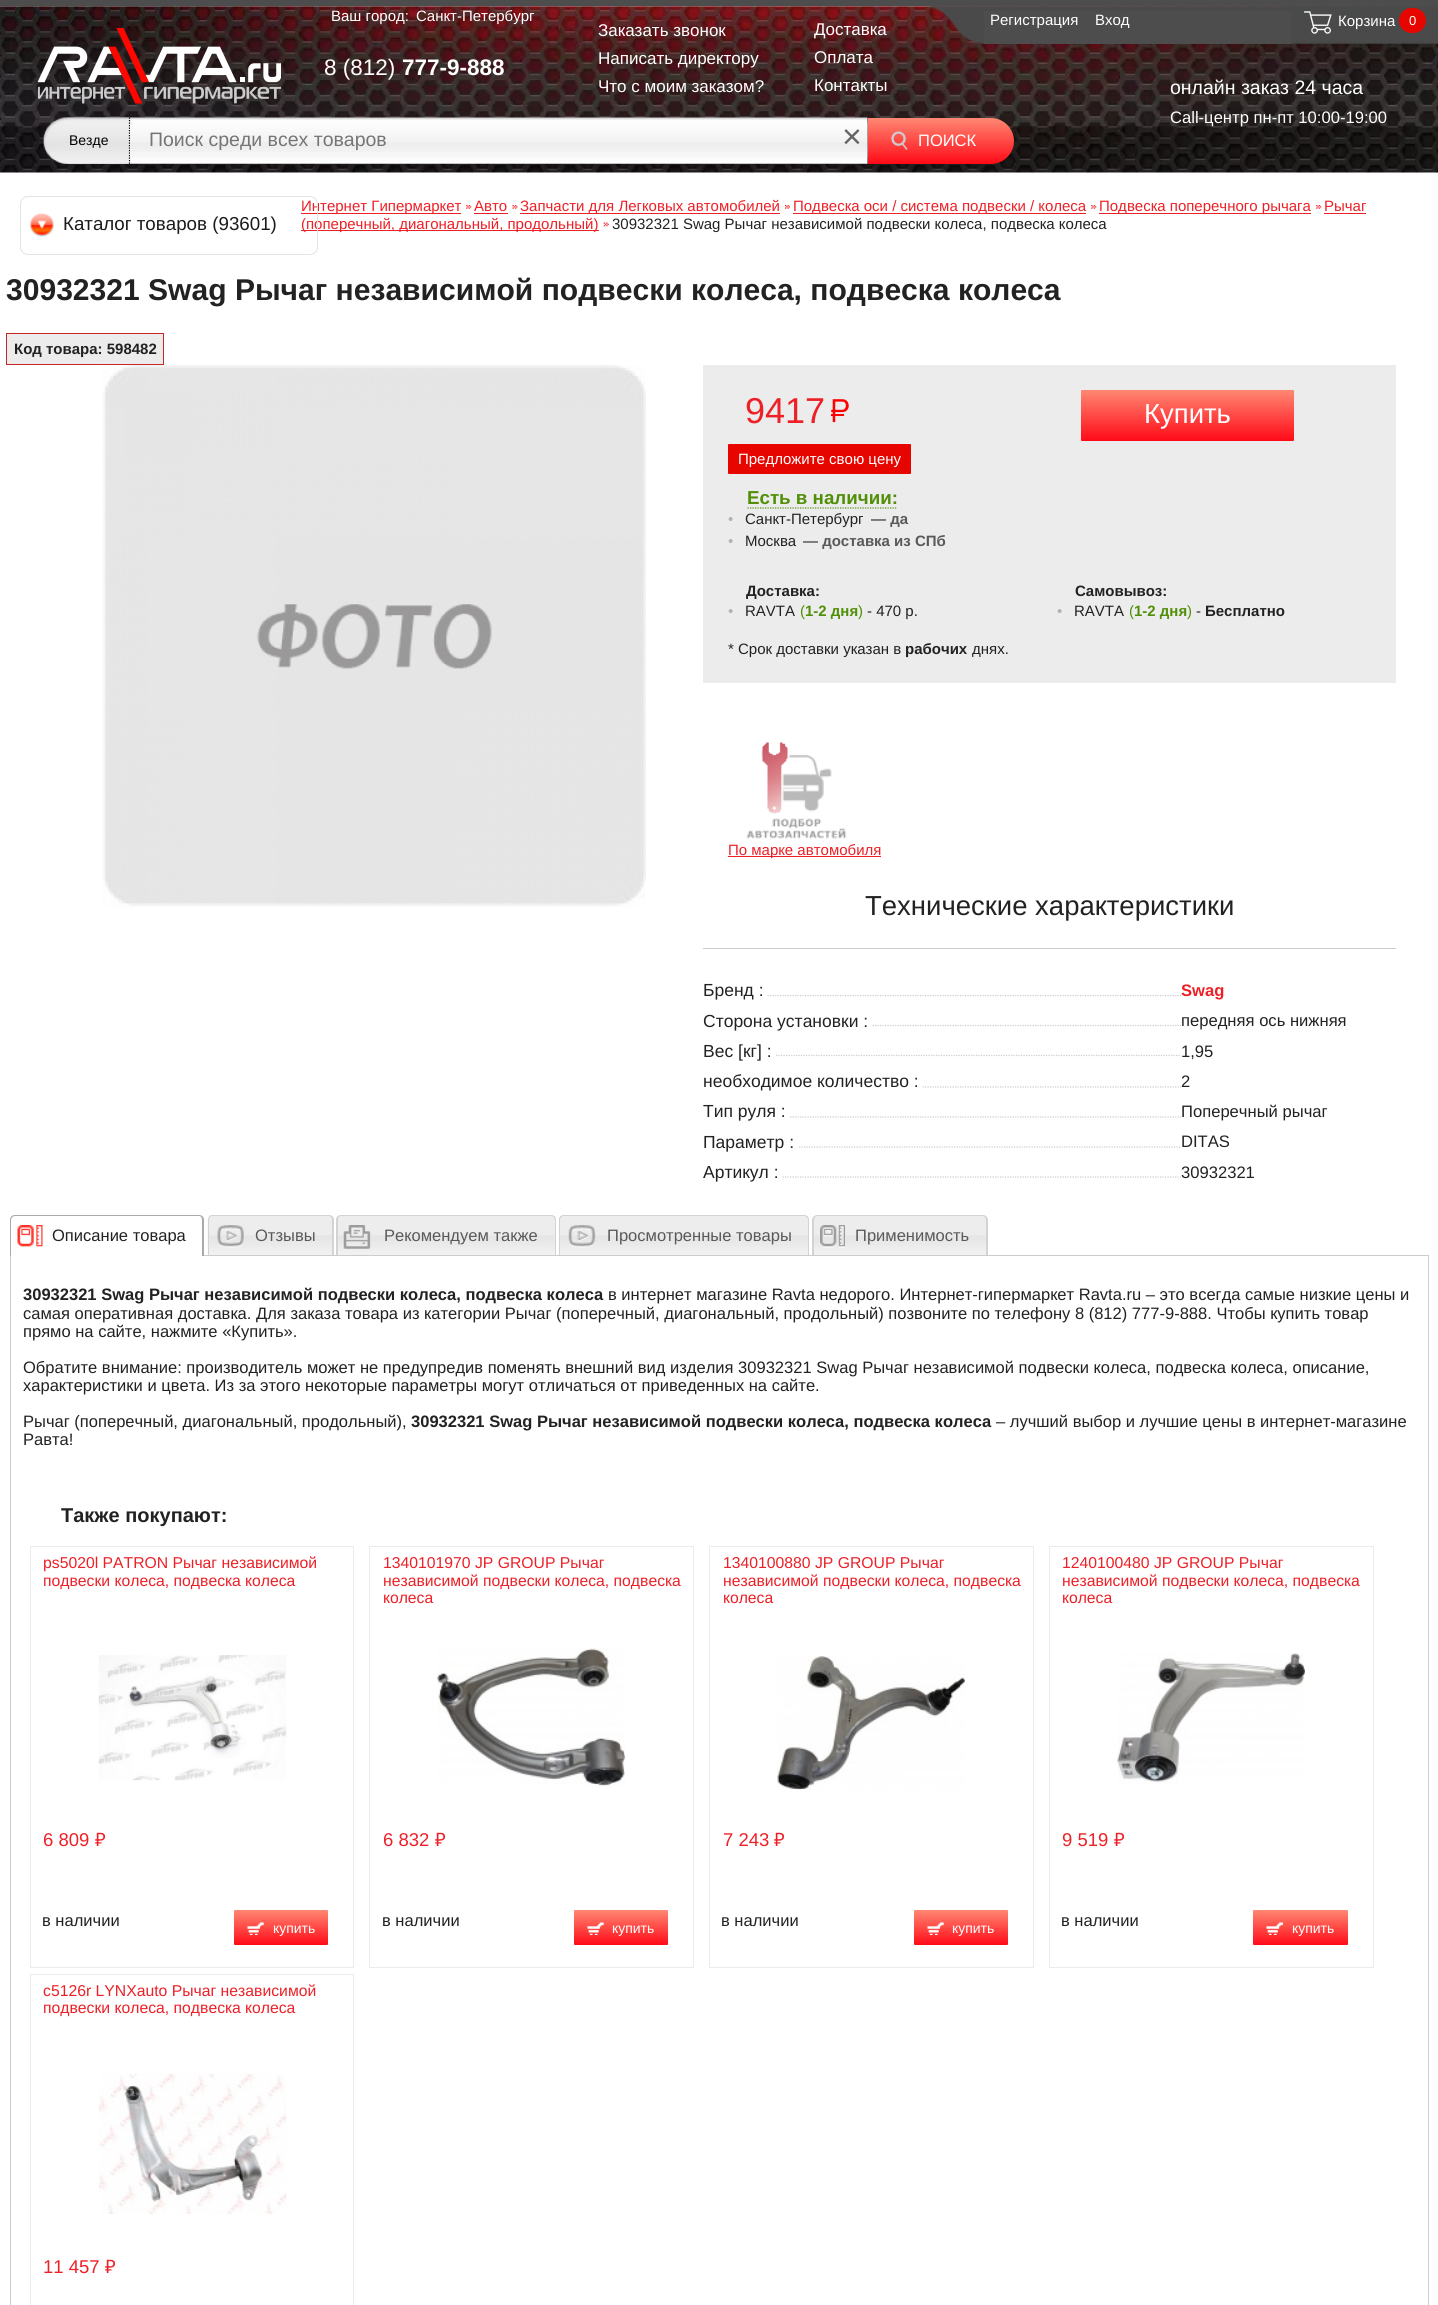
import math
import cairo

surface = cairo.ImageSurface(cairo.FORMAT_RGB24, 1438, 2305)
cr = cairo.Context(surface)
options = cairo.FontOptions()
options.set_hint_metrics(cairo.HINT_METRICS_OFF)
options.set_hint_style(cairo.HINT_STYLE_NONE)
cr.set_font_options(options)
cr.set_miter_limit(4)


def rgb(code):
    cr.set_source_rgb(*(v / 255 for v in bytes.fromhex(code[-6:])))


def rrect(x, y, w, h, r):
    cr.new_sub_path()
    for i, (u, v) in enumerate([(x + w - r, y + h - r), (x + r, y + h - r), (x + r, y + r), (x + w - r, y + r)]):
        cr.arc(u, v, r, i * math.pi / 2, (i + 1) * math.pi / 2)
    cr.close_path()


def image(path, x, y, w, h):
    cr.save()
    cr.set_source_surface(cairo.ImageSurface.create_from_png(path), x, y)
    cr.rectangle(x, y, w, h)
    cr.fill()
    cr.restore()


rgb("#ffffff")
cr.paint()
image("img/1.png", 0, 6, 1438, 167)
rgb("#4d4d4e")
cr.rectangle(0, 0, 1438, 6)
cr.fill()
image("img/2.png", 927, 6, 511, 38)
rgb("#4d4d4d")
cr.rectangle(984, 11, 307, 33)
cr.fill()
image("img/3.png", 1304, 11, 28, 23)
rgb("#e70500")
rrect(1399, 8, 27, 25, 12.5)
cr.fill()
image("img/4.png", 38, 28, 243, 76)
image("img/5.png", 43, 117, 825, 47)
image("img/6.png", 43, 117, 87, 47)
cr.new_path()
cr.move_to(129.5, 117.5)
cr.line_to(129.5, 164)
rgb("#000000")
cr.set_line_width(1.2)
cr.set_dash([1.25, 1.25])
cr.stroke()
image("img/7.png", 130, 122, 738, 36)
gradient = cairo.LinearGradient(941, 118, 941, 164)
gradient.add_color_stop_rgba(0, 1, 0.533, 0.451, 1)
gradient.add_color_stop_rgba(1, 1, 0.039, 0.09, 1)
cr.set_source(gradient)
cr.new_path()
cr.move_to(868.5, 118)
cr.line_to(991, 118)
cr.curve_to(1003.5, 118, 1014, 128.5, 1014, 141)
cr.curve_to(1014, 153.5, 1003.5, 164, 991, 164)
cr.line_to(868.5, 164)
cr.curve_to(868, 164, 868, 164, 868, 163.5)
cr.line_to(868, 118.5)
cr.curve_to(868, 118, 868, 118, 868.5, 118)
cr.close_path()
cr.fill()
image("img/8.png", 891, 131, 17, 19)
rgb("#ed2027")
cr.rectangle(301, 213, 160, 1)
cr.fill()
image("img/10.png", 466, 205, 6, 4)
cr.rectangle(474, 213, 34, 1)
cr.fill()
image("img/11.png", 512, 205, 6, 4)
cr.rectangle(520, 213, 260, 1)
cr.fill()
image("img/12.png", 785, 205, 5, 4)
cr.rectangle(793, 213, 293, 1)
cr.fill()
image("img/10.png", 1091, 205, 6, 4)
cr.rectangle(1099, 213, 212, 1)
cr.fill()
image("img/10.png", 1316, 205, 6, 4)
cr.rectangle(1324, 213, 42, 1)
cr.fill()
cr.rectangle(301, 230, 298, 1)
cr.fill()
image("img/13.png", 603, 222, 6, 5)
rgb("#ececec")
cr.rectangle(6.5, 333.5, 157, 31)
cr.fill_preserve()
rgb("#c72626")
cr.set_line_width(1)
cr.set_dash([])
cr.stroke()
image("img/14.png", 102, 365, 544, 542)
rgb("#ececec")
cr.rectangle(703, 365, 693, 318)
cr.fill()
image("img/15.png", 831, 399, 18, 24)
rgb("#e70500")
rrect(728, 444, 183, 30, 1)
cr.fill()
cr.new_path()
cr.move_to(747.5, 508)
cr.line_to(897.5, 508)
rgb("#518f08")
cr.set_line_width(1.2)
cr.set_dash([1.25, 1.25])
cr.stroke()
gradient = cairo.LinearGradient(1188, 390, 1188, 441)
gradient.add_color_stop_rgba(0, 1, 0.533, 0.451, 1)
gradient.add_color_stop_rgba(1, 1, 0.039, 0.09, 1)
cr.set_source(gradient)
rrect(1081, 390, 213, 51, 1)
cr.fill()
image("img/16.png", 746, 742, 101, 97)
rgb("#ed2027")
cr.rectangle(728, 856, 153, 1)
cr.fill()
rgb("#cccccc")
cr.rectangle(703, 948, 693, 1)
cr.fill()
cr.save()
cr.rectangle(703, 980, 478, 21)
cr.clip()
cr.new_path()
cr.move_to(767.5, 995.5)
cr.line_to(1246, 995.5)
cr.stroke()
cr.restore()
cr.save()
cr.rectangle(703, 1010, 478, 21)
cr.clip()
cr.new_path()
cr.move_to(872.5, 1025.5)
cr.line_to(1351, 1025.5)
cr.stroke()
cr.restore()
cr.save()
cr.rectangle(703, 1040, 478, 23)
cr.clip()
cr.new_path()
cr.move_to(776, 1055.5)
cr.line_to(1255, 1055.5)
cr.stroke()
cr.restore()
cr.save()
cr.rectangle(703, 1071, 478, 22)
cr.clip()
cr.new_path()
cr.move_to(922.5, 1087)
cr.line_to(1401, 1087)
cr.stroke()
cr.restore()
cr.save()
cr.rectangle(703, 1101, 478, 22)
cr.clip()
cr.new_path()
cr.move_to(790, 1117)
cr.line_to(1269, 1117)
cr.stroke()
cr.restore()
cr.save()
cr.rectangle(703, 1131, 478, 22)
cr.clip()
cr.new_path()
cr.move_to(799, 1147)
cr.line_to(1277.5, 1147)
cr.stroke()
cr.restore()
cr.save()
cr.rectangle(703, 1161, 478, 23)
cr.clip()
cr.new_path()
cr.move_to(782.5, 1177)
cr.line_to(1261, 1177)
cr.stroke()
cr.restore()
cr.rectangle(10.5, 1255.5, 1418, 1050)
cr.set_line_width(1)
cr.set_dash([])
cr.stroke()
rgb("#ffffff")
cr.new_path()
cr.move_to(15, 1215)
cr.line_to(199, 1215)
cr.curve_to(202, 1215, 204, 1217, 204, 1220)
cr.line_to(204, 1256)
cr.line_to(10, 1256)
cr.line_to(10, 1220)
cr.curve_to(10, 1217, 12, 1215, 15, 1215)
cr.close_path()
cr.fill()
rgb("#aaaaaa")
cr.set_fill_rule(cairo.FILL_RULE_EVEN_ODD)
cr.new_path()
cr.move_to(15, 1215)
cr.line_to(199, 1215)
cr.curve_to(202, 1215, 204, 1217, 204, 1220)
cr.line_to(204, 1256)
cr.line_to(10, 1256)
cr.line_to(10, 1220)
cr.curve_to(10, 1217, 12, 1215, 15, 1215)
cr.close_path()
cr.move_to(15, 1216)
cr.line_to(199, 1216)
cr.curve_to(201, 1216, 202, 1218, 202, 1220)
cr.line_to(202, 1256)
cr.line_to(11, 1256)
cr.line_to(11, 1220)
cr.curve_to(11, 1218, 13, 1216, 15, 1216)
cr.close_path()
cr.fill()
image("img/17.png", 17, 1225, 26, 22)
image("img/18.png", 207, 1215, 127, 40)
rgb("#d3d3d3")
cr.new_path()
cr.move_to(212, 1215)
cr.line_to(329, 1215)
cr.curve_to(332, 1215, 334, 1217, 334, 1220)
cr.line_to(334, 1255)
cr.line_to(208, 1255)
cr.line_to(208, 1220)
cr.curve_to(208, 1217, 210, 1215, 212, 1215)
cr.close_path()
cr.move_to(212, 1216)
cr.line_to(329, 1216)
cr.curve_to(331, 1216, 332, 1218, 332, 1220)
cr.line_to(332, 1255)
cr.line_to(209, 1255)
cr.line_to(209, 1220)
cr.curve_to(209, 1218, 210, 1216, 212, 1216)
cr.close_path()
cr.fill()
image("img/19.png", 217, 1225, 27, 23)
image("img/20.png", 336, 1215, 220, 40)
cr.new_path()
cr.move_to(341, 1215)
cr.line_to(551, 1215)
cr.curve_to(554, 1215, 556, 1217, 556, 1220)
cr.line_to(556, 1255)
cr.line_to(336, 1255)
cr.line_to(336, 1220)
cr.curve_to(336, 1217, 338, 1215, 341, 1215)
cr.close_path()
cr.move_to(341, 1216)
cr.line_to(551, 1216)
cr.curve_to(553, 1216, 555, 1218, 555, 1220)
cr.line_to(555, 1255)
cr.line_to(338, 1255)
cr.line_to(338, 1220)
cr.curve_to(338, 1218, 339, 1216, 341, 1216)
cr.close_path()
cr.fill()
image("img/21.png", 343, 1225, 28, 24)
image("img/22.png", 559, 1215, 250, 40)
cr.new_path()
cr.move_to(564, 1215)
cr.line_to(804, 1215)
cr.curve_to(807, 1215, 809, 1217, 809, 1220)
cr.line_to(809, 1255)
cr.line_to(559, 1255)
cr.line_to(559, 1220)
cr.curve_to(559, 1217, 561, 1215, 564, 1215)
cr.close_path()
cr.move_to(564, 1216)
cr.line_to(804, 1216)
cr.curve_to(806, 1216, 808, 1218, 808, 1220)
cr.line_to(808, 1255)
cr.line_to(560, 1255)
cr.line_to(560, 1220)
cr.curve_to(560, 1218, 562, 1216, 564, 1216)
cr.close_path()
cr.fill()
image("img/23.png", 568, 1225, 28, 23)
rgb("#e6e6e6")
cr.new_path()
cr.move_to(818, 1215)
cr.line_to(983, 1215)
cr.curve_to(986, 1215, 988, 1217, 988, 1220)
cr.line_to(988, 1255)
cr.line_to(813, 1255)
cr.line_to(813, 1220)
cr.curve_to(813, 1217, 815, 1215, 818, 1215)
cr.close_path()
cr.fill()
image("img/24.png", 812, 1215, 175, 40)
rgb("#d3d3d3")
cr.new_path()
cr.move_to(818, 1215)
cr.line_to(982, 1215)
cr.curve_to(985, 1215, 988, 1217, 988, 1220)
cr.line_to(988, 1255)
cr.line_to(812, 1255)
cr.line_to(812, 1220)
cr.curve_to(812, 1217, 815, 1215, 818, 1215)
cr.close_path()
cr.move_to(818, 1216)
cr.line_to(982, 1216)
cr.curve_to(985, 1216, 986, 1218, 986, 1220)
cr.line_to(986, 1255)
cr.line_to(814, 1255)
cr.line_to(814, 1220)
cr.curve_to(814, 1218, 815, 1216, 818, 1216)
cr.close_path()
cr.fill()
image("img/25.png", 820, 1225, 25, 23)
cr.rectangle(30.5, 1546.5, 323, 421)
rgb("#e9ebed")
cr.stroke()
image("img/26.png", 98, 1655, 189, 126)
gradient = cairo.LinearGradient(281, 1910, 281, 1945)
gradient.add_color_stop_rgba(0, 1, 0.533, 0.451, 1)
gradient.add_color_stop_rgba(1, 1, 0.039, 0.09, 1)
cr.set_source(gradient)
rrect(234, 1910, 94, 35, 1)
cr.fill()
image("img/27.png", 247, 1922, 17, 13)
cr.rectangle(369.5, 1546.5, 324, 421)
rgb("#e9ebed")
cr.stroke()
image("img/28.png", 437, 1647, 188, 139)
gradient = cairo.LinearGradient(621, 1910, 621, 1945)
gradient.add_color_stop_rgba(0, 1, 0.533, 0.451, 1)
gradient.add_color_stop_rgba(1, 1, 0.039, 0.09, 1)
cr.set_source(gradient)
rrect(574, 1910, 94, 35, 1)
cr.fill()
image("img/27.png", 587, 1922, 17, 13)
cr.rectangle(709.5, 1546.5, 324, 421)
rgb("#e9ebed")
cr.stroke()
image("img/29.png", 777, 1656, 188, 134)
gradient = cairo.LinearGradient(961, 1910, 961, 1945)
gradient.add_color_stop_rgba(0, 1, 0.533, 0.451, 1)
gradient.add_color_stop_rgba(1, 1, 0.039, 0.09, 1)
cr.set_source(gradient)
rrect(914, 1910, 94, 35, 1)
cr.fill()
image("img/27.png", 927, 1922, 17, 13)
cr.rectangle(1049.5, 1546.5, 324, 421)
rgb("#e9ebed")
cr.stroke()
image("img/30.png", 1117, 1653, 188, 131)
gradient = cairo.LinearGradient(1300, 1910, 1300, 1945)
gradient.add_color_stop_rgba(0, 1, 0.533, 0.451, 1)
gradient.add_color_stop_rgba(1, 1, 0.039, 0.09, 1)
cr.set_source(gradient)
rrect(1253, 1910, 95, 35, 1)
cr.fill()
image("img/31.png", 1266, 1922, 18, 13)
cr.rectangle(30.5, 1974.5, 323, 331)
rgb("#e9ebed")
cr.stroke()
image("img/32.png", 98, 2073, 189, 141)
cr.select_font_face("Liberation Sans")
cr.set_font_size(15)
rgb("#ffffff")
for x, y, s in [
    (331, 21, "Ваш город:"),
    (416, 21, "Санкт-Петербург"),
    (990, 25, "Регистрация"),
    (1095, 25, "Вход"),
    (1338, 26, "Корзина"),
]:
    cr.move_to(x, y)
    cr.show_text(s)
cr.set_font_size(13)
cr.move_to(1409, 25)
cr.show_text("0")
cr.set_font_size(22.5)
cr.move_to(324, 75)
cr.show_text("8 (812)")
cr.select_font_face("Liberation Sans", cairo.FONT_SLANT_NORMAL, cairo.FONT_WEIGHT_BOLD)
cr.move_to(402, 75)
cr.show_text("777-9-888")
cr.select_font_face("Liberation Sans")
cr.set_font_size(17)
for x, y, s in [
    (598, 36, "Заказать звонок"),
    (598, 64, "Написать директору"),
    (598, 92, "Что с моим заказом?"),
    (814, 35, "Доставка"),
    (814, 63, "Оплата"),
    (814, 91, "Контакты"),
]:
    cr.move_to(x, y)
    cr.show_text(s)
cr.set_font_size(14)
rgb("#000000")
cr.move_to(69, 145)
cr.show_text("Везде")
cr.set_font_size(19.5)
rgb("#757575")
cr.move_to(149, 146)
cr.show_text("Поиск среди всех товаров")
cr.set_font_size(34)
rgb("#666666")
cr.move_to(842, 148)
cr.show_text("×")
cr.set_font_size(16.53)
rgb("#ffffff")
cr.move_to(918, 146)
cr.show_text("ПОИСК")
cr.set_font_size(19.5)
cr.move_to(1170, 94)
cr.show_text("онлайн заказ 24 часа")
cr.set_font_size(16.6)
cr.move_to(1170, 123)
cr.show_text("Call-центр пн-пт 10:00-19:00")
cr.set_font_size(15)
rgb("#ed2027")
for x, y, s in [
    (301, 211, "Интернет Гипермаркет"),
    (474, 211, "Авто"),
    (520, 211, "Запчасти для Легковых автомобилей"),
    (793, 211, "Подвеска оси / система подвески / колеса"),
    (1099, 211, "Подвеска поперечного рычага"),
    (1324, 211, "Рычаг"),
    (301, 229, "(поперечный, диагональный, продольный)"),
]:
    cr.move_to(x, y)
    cr.show_text(s)
rrect(20.5, 196.5, 297, 58, 7.5)
rgb("#e3e3e3")
cr.stroke()
image("img/9.png", 30, 213, 24, 24)
cr.set_font_size(18.75)
rgb("#1b1b1b")
cr.move_to(63, 230)
cr.show_text("Каталог товаров (93601)")
cr.set_font_size(15)
rgb("#222222")
cr.move_to(612, 229)
cr.show_text("30932321 Swag Рычаг независимой подвески колеса, подвеска колеса")
cr.select_font_face("Liberation Sans", cairo.FONT_SLANT_NORMAL, cairo.FONT_WEIGHT_BOLD)
cr.set_font_size(30.05)
cr.move_to(6, 300)
cr.show_text("30932321 Swag Рычаг независимой подвески колеса, подвеска колеса")
cr.set_font_size(15)
cr.move_to(14, 354)
cr.show_text("Код товара: 598482")
cr.select_font_face("Liberation Sans")
cr.set_font_size(36)
rgb("#ed2027")
cr.move_to(745, 423)
cr.show_text("9417")
cr.set_font_size(15)
rgb("#ffffff")
cr.move_to(738, 464)
cr.show_text("Предложите свою цену")
cr.select_font_face("Liberation Sans", cairo.FONT_SLANT_NORMAL, cairo.FONT_WEIGHT_BOLD)
cr.set_font_size(18.75)
rgb("#518f08")
cr.move_to(747, 504)
cr.show_text("Есть в наличии:")
cr.select_font_face("Liberation Sans")
cr.set_font_size(15)
rgb("#b2b2b2")
cr.move_to(728, 524)
cr.show_text("•")
rgb("#222222")
cr.move_to(745, 524)
cr.show_text("Санкт-Петербург")
cr.select_font_face("Liberation Sans", cairo.FONT_SLANT_NORMAL, cairo.FONT_WEIGHT_BOLD)
rgb("#595959")
cr.move_to(871, 524)
cr.show_text("— да")
cr.select_font_face("Liberation Sans")
rgb("#b2b2b2")
cr.move_to(728, 546)
cr.show_text("•")
rgb("#222222")
cr.move_to(745, 546)
cr.show_text("Москва")
cr.select_font_face("Liberation Sans", cairo.FONT_SLANT_NORMAL, cairo.FONT_WEIGHT_BOLD)
rgb("#595959")
cr.move_to(803, 546)
cr.show_text("— доставка из СПб")
cr.select_font_face("Liberation Sans")
cr.set_font_size(27.5)
rgb("#ffffff")
cr.move_to(1144, 423)
cr.show_text("Купить")
cr.select_font_face("Liberation Sans", cairo.FONT_SLANT_NORMAL, cairo.FONT_WEIGHT_BOLD)
cr.set_font_size(15)
rgb("#222222")
cr.move_to(746, 596)
cr.show_text("Доставка:")
cr.select_font_face("Liberation Sans")
rgb("#b2b2b2")
cr.move_to(728, 616)
cr.show_text("•")
rgb("#222222")
cr.move_to(745, 616)
cr.show_text("RAVTA")
rgb("#518f08")
cr.move_to(800, 616)
cr.show_text("(")
cr.select_font_face("Liberation Sans", cairo.FONT_SLANT_NORMAL, cairo.FONT_WEIGHT_BOLD)
cr.move_to(805, 616)
cr.show_text("1‐2 дня")
cr.select_font_face("Liberation Sans")
cr.move_to(858, 616)
cr.show_text(")")
rgb("#222222")
cr.move_to(867, 616)
cr.show_text("- 470 р.")
cr.select_font_face("Liberation Sans", cairo.FONT_SLANT_NORMAL, cairo.FONT_WEIGHT_BOLD)
cr.move_to(1075, 596)
cr.show_text("Самовывоз:")
cr.select_font_face("Liberation Sans")
rgb("#b2b2b2")
cr.move_to(1057, 616)
cr.show_text("•")
rgb("#222222")
cr.move_to(1074, 616)
cr.show_text("RAVTA")
rgb("#518f08")
cr.move_to(1129, 616)
cr.show_text("(")
cr.select_font_face("Liberation Sans", cairo.FONT_SLANT_NORMAL, cairo.FONT_WEIGHT_BOLD)
cr.move_to(1134, 616)
cr.show_text("1‐2 дня")
cr.select_font_face("Liberation Sans")
cr.move_to(1187, 616)
cr.show_text(")")
rgb("#222222")
cr.move_to(1196, 616)
cr.show_text("-")
cr.select_font_face("Liberation Sans", cairo.FONT_SLANT_NORMAL, cairo.FONT_WEIGHT_BOLD)
cr.move_to(1205, 616)
cr.show_text("Бесплатно")
cr.select_font_face("Liberation Sans")
cr.move_to(728, 654)
cr.show_text("* Срок доставки указан в")
cr.select_font_face("Liberation Sans", cairo.FONT_SLANT_NORMAL, cairo.FONT_WEIGHT_BOLD)
cr.move_to(905, 654)
cr.show_text("рабочих")
cr.select_font_face("Liberation Sans")
cr.move_to(972, 654)
cr.show_text("днях.")
rgb("#ed2027")
cr.move_to(728, 855)
cr.show_text("По марке автомобиля")
cr.set_font_size(27.5)
rgb("#222222")
cr.move_to(865, 915)
cr.show_text("Технические характеристики")
cr.set_font_size(17.5)
cr.move_to(703, 996)
cr.show_text("Бренд :")
cr.select_font_face("Liberation Sans", cairo.FONT_SLANT_NORMAL, cairo.FONT_WEIGHT_BOLD)
cr.set_font_size(16.6)
rgb("#ed2027")
cr.move_to(1181, 996)
cr.show_text("Swag")
cr.select_font_face("Liberation Sans")
cr.set_font_size(17.5)
rgb("#222222")
cr.move_to(703, 1027)
cr.show_text("Сторона установки :")
cr.set_font_size(16.6)
cr.move_to(1181, 1026)
cr.show_text("передняя ось нижняя")
cr.set_font_size(17.5)
cr.move_to(703, 1057)
cr.show_text("Вес [кг] :")
cr.set_font_size(16.6)
cr.move_to(1181, 1057)
cr.show_text("1,95")
cr.set_font_size(17.5)
cr.move_to(703, 1087)
cr.show_text("необходимое количество :")
cr.set_font_size(16.6)
cr.move_to(1181, 1087)
cr.show_text("2")
cr.set_font_size(17.5)
cr.move_to(703, 1117)
cr.show_text("Тип руля :")
cr.set_font_size(16.6)
cr.move_to(1181, 1117)
cr.show_text("Поперечный рычаг")
cr.set_font_size(17.5)
cr.move_to(703, 1148)
cr.show_text("Параметр :")
cr.set_font_size(16.6)
cr.move_to(1181, 1147)
cr.show_text("DITAS")
cr.set_font_size(17.5)
cr.move_to(703, 1178)
cr.show_text("Артикул :")
cr.set_font_size(16.6)
cr.move_to(1181, 1178)
cr.show_text("30932321")
cr.set_font_size(16.53)
cr.move_to(52, 1241)
cr.show_text("Описание товара")
rgb("#595959")
for x, y, s in [
    (255, 1241, "Отзывы"),
    (384, 1241, "Рекомендуем также"),
    (607, 1241, "Просмотренные товары"),
    (855, 1241, "Применимость"),
]:
    cr.move_to(x, y)
    cr.show_text(s)
cr.select_font_face("Liberation Sans", cairo.FONT_SLANT_NORMAL, cairo.FONT_WEIGHT_BOLD)
rgb("#222222")
cr.move_to(23, 1300)
cr.show_text("30932321 Swag Рычаг независимой подвески колеса, подвеска колеса")
cr.select_font_face("Liberation Sans")
for x, y, s in [
    (608, 1300, "в интернет магазине Ravta недорого. Интернет-гипермаркет Ravta.ru – это всегда самые низкие цены и"),
    (23, 1319, "самая оперативная доставка. Для заказа товара из категории Рычаг (поперечный, диагональный, продольный) позвоните по телефону 8 (812) 777-9-888. Чтобы купить товар"),
    (23, 1337, "прямо на сайте, нажмите «Купить»."),
    (23, 1373, "Обратите внимание: производитель может не предупредив поменять внешний вид изделия 30932321 Swag Рычаг независимой подвески колеса, подвеска колеса, описание,"),
    (23, 1391, "характеристики и цвета. Из за этого некоторые параметры могут отличаться от приведенных на сайте."),
    (23, 1427, "Рычаг (поперечный, диагональный, продольный),"),
]:
    cr.move_to(x, y)
    cr.show_text(s)
cr.select_font_face("Liberation Sans", cairo.FONT_SLANT_NORMAL, cairo.FONT_WEIGHT_BOLD)
cr.move_to(411, 1427)
cr.show_text("30932321 Swag Рычаг независимой подвески колеса, подвеска колеса")
cr.select_font_face("Liberation Sans")
cr.move_to(996, 1427)
cr.show_text("– лучший выбор и лучшие цены в интернет-магазине")
cr.move_to(23, 1445)
cr.show_text("Равта!")
cr.select_font_face("Liberation Sans", cairo.FONT_SLANT_NORMAL, cairo.FONT_WEIGHT_BOLD)
cr.set_font_size(20)
cr.move_to(61, 1522)
cr.show_text("Также покупают:")
cr.select_font_face("Liberation Sans")
cr.set_font_size(15.75)
rgb("#ed2027")
cr.move_to(43, 1568)
cr.show_text("ps5020l PATRON Рычаг независимой")
cr.move_to(43, 1586)
cr.show_text("подвески колеса, подвеска колеса")
cr.set_font_size(18.5)
cr.move_to(43, 1846)
cr.show_text("6 809")
cr.select_font_face("Noto Sans")
cr.move_to(95, 1846)
cr.show_text("₽")
cr.select_font_face("Liberation Sans")
cr.set_font_size(16.53)
rgb("#222222")
cr.move_to(42, 1926)
cr.show_text("в наличии")
cr.set_font_size(14)
rgb("#ffffff")
cr.move_to(273, 1933)
cr.show_text("купить")
cr.set_font_size(15.75)
rgb("#ed2027")
for x, y, s in [
    (383, 1568, "1340101970 JP GROUP Рычаг"),
    (383, 1586, "независимой подвески колеса, подвеска"),
    (383, 1603, "колеса"),
]:
    cr.move_to(x, y)
    cr.show_text(s)
cr.set_font_size(18.5)
cr.move_to(383, 1846)
cr.show_text("6 832")
cr.select_font_face("Noto Sans")
cr.move_to(435, 1846)
cr.show_text("₽")
cr.select_font_face("Liberation Sans")
cr.set_font_size(16.53)
rgb("#222222")
cr.move_to(382, 1926)
cr.show_text("в наличии")
cr.set_font_size(14)
rgb("#ffffff")
cr.move_to(612, 1933)
cr.show_text("купить")
cr.set_font_size(15.75)
rgb("#ed2027")
for x, y, s in [
    (723, 1568, "1340100880 JP GROUP Рычаг"),
    (723, 1586, "независимой подвески колеса, подвеска"),
    (723, 1603, "колеса"),
]:
    cr.move_to(x, y)
    cr.show_text(s)
cr.set_font_size(18.5)
cr.move_to(723, 1846)
cr.show_text("7 243")
cr.select_font_face("Noto Sans")
cr.move_to(774, 1846)
cr.show_text("₽")
cr.select_font_face("Liberation Sans")
cr.set_font_size(16.53)
rgb("#222222")
cr.move_to(721, 1926)
cr.show_text("в наличии")
cr.set_font_size(14)
rgb("#ffffff")
cr.move_to(952, 1933)
cr.show_text("купить")
cr.set_font_size(15.75)
rgb("#ed2027")
for x, y, s in [
    (1062, 1568, "1240100480 JP GROUP Рычаг"),
    (1062, 1586, "независимой подвески колеса, подвеска"),
    (1062, 1603, "колеса"),
]:
    cr.move_to(x, y)
    cr.show_text(s)
cr.set_font_size(18.5)
cr.move_to(1062, 1846)
cr.show_text("9 519")
cr.select_font_face("Noto Sans")
cr.move_to(1114, 1846)
cr.show_text("₽")
cr.select_font_face("Liberation Sans")
cr.set_font_size(16.53)
rgb("#222222")
cr.move_to(1061, 1926)
cr.show_text("в наличии")
cr.set_font_size(14)
rgb("#ffffff")
cr.move_to(1292, 1933)
cr.show_text("купить")
cr.set_font_size(15.75)
rgb("#ed2027")
cr.move_to(43, 1996)
cr.show_text("c5126r LYNXauto Рычаг независимой")
cr.move_to(43, 2013)
cr.show_text("подвески колеса, подвеска колеса")
cr.set_font_size(18.5)
cr.move_to(43, 2273)
cr.show_text("11 457")
cr.select_font_face("Noto Sans")
cr.move_to(105, 2273)
cr.show_text("₽")
surface.write_to_png("page.png")
